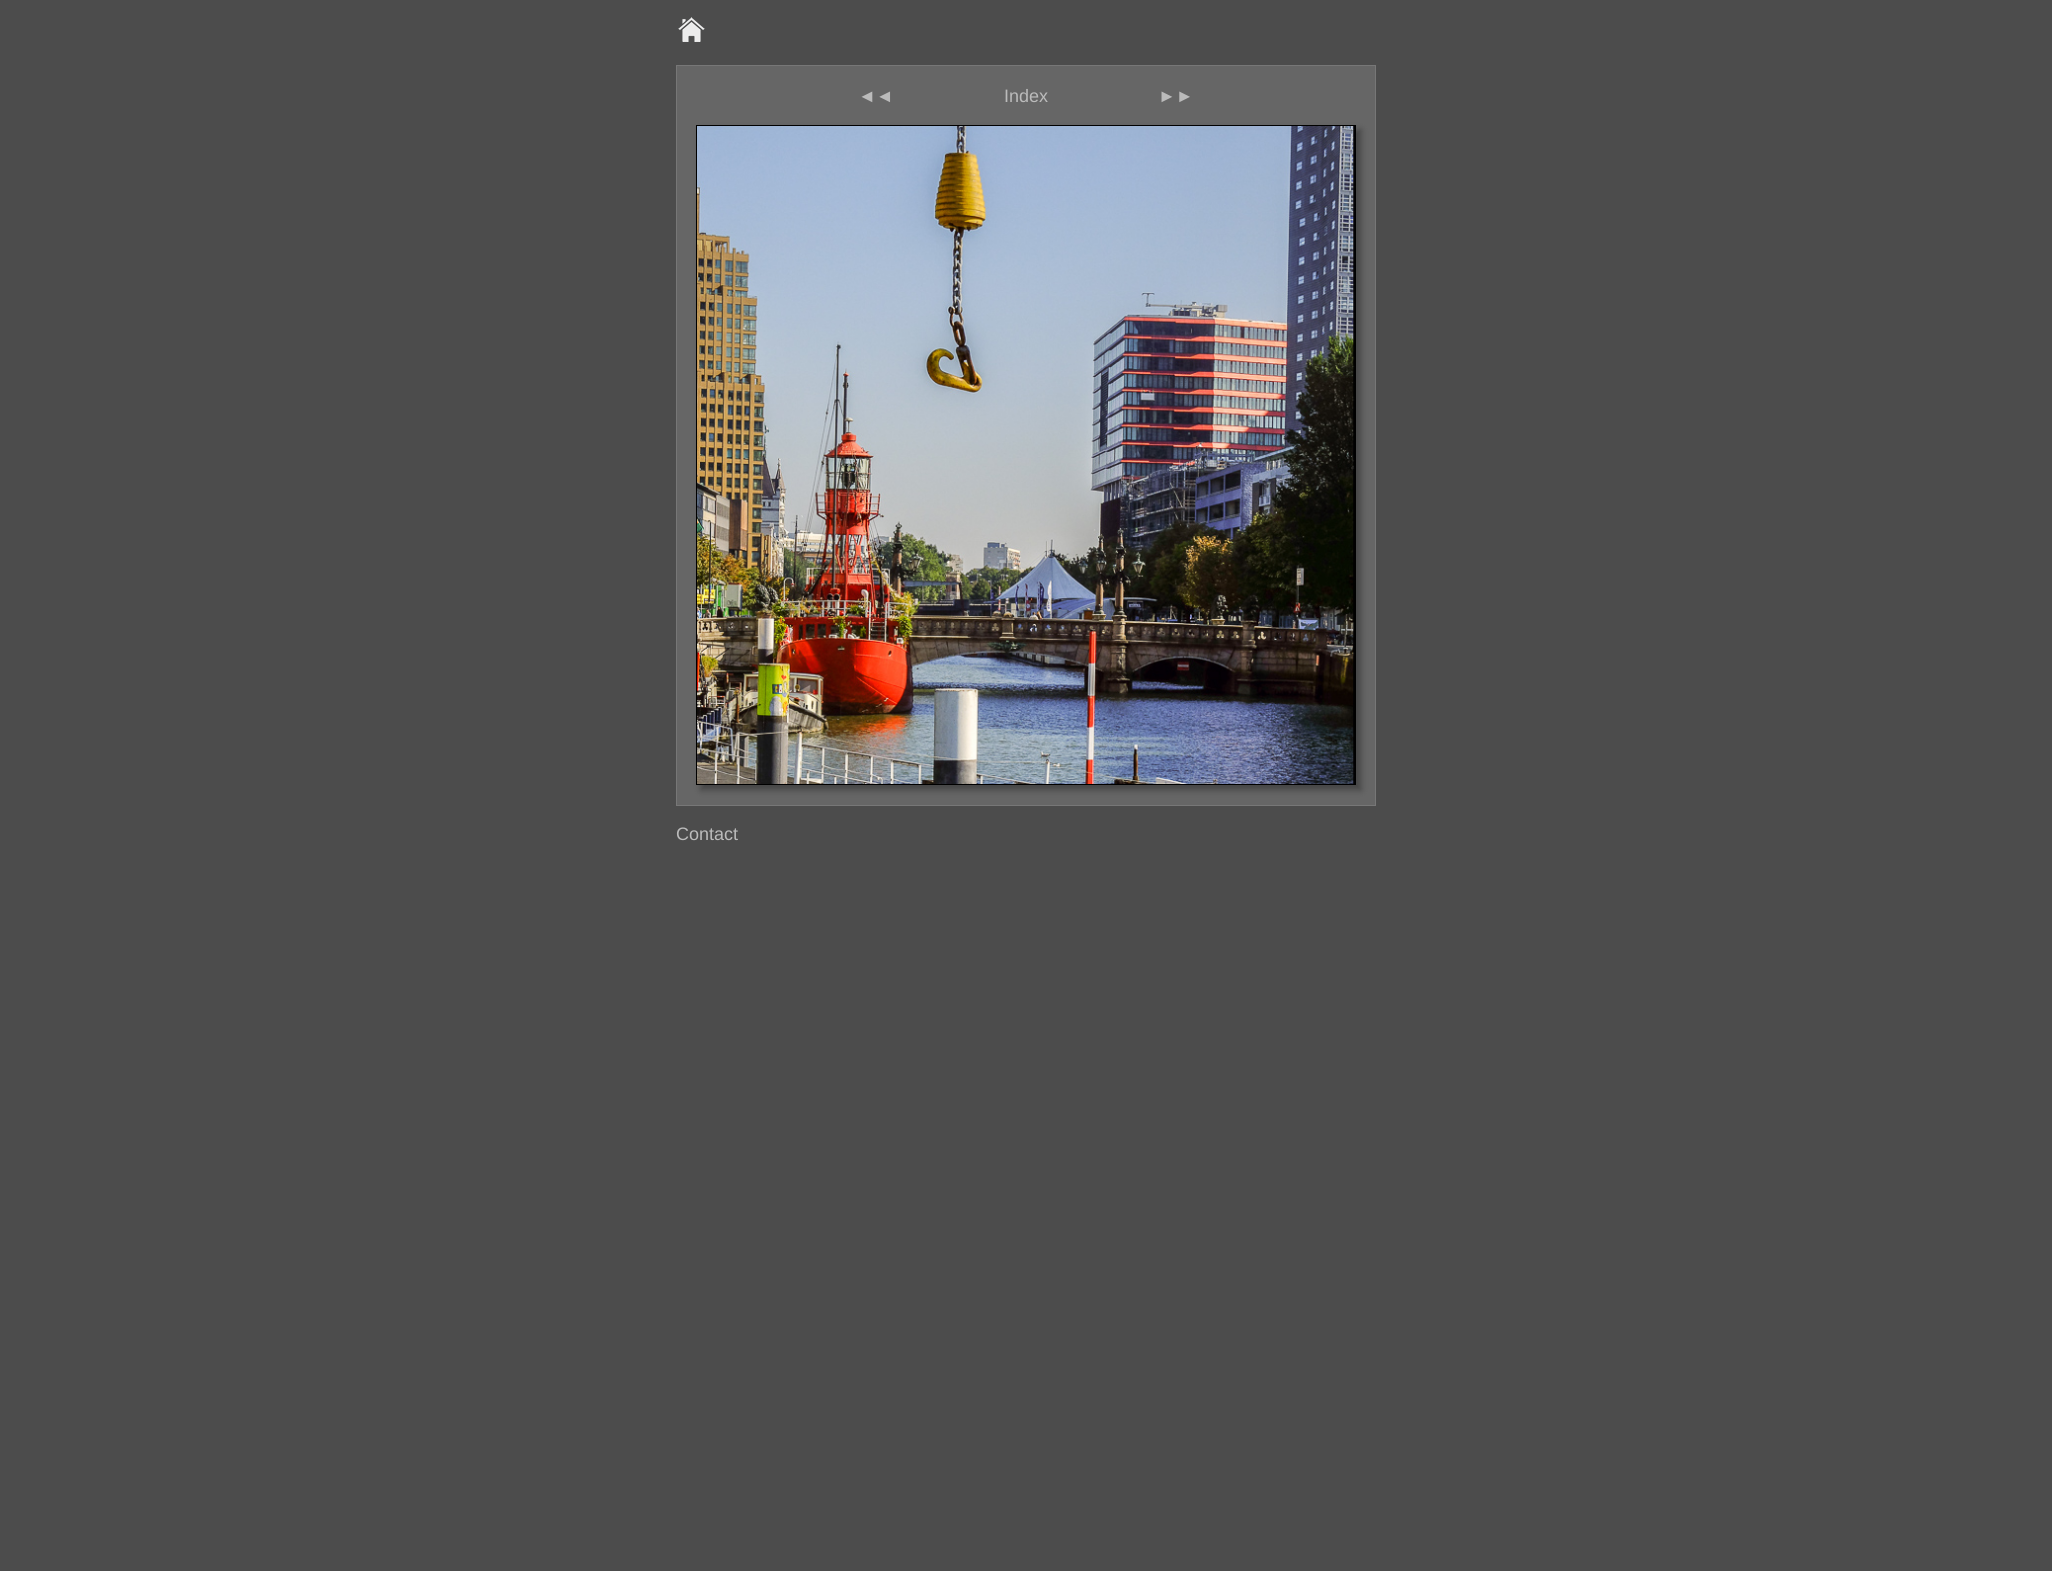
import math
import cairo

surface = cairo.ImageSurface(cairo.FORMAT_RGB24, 2052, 1571)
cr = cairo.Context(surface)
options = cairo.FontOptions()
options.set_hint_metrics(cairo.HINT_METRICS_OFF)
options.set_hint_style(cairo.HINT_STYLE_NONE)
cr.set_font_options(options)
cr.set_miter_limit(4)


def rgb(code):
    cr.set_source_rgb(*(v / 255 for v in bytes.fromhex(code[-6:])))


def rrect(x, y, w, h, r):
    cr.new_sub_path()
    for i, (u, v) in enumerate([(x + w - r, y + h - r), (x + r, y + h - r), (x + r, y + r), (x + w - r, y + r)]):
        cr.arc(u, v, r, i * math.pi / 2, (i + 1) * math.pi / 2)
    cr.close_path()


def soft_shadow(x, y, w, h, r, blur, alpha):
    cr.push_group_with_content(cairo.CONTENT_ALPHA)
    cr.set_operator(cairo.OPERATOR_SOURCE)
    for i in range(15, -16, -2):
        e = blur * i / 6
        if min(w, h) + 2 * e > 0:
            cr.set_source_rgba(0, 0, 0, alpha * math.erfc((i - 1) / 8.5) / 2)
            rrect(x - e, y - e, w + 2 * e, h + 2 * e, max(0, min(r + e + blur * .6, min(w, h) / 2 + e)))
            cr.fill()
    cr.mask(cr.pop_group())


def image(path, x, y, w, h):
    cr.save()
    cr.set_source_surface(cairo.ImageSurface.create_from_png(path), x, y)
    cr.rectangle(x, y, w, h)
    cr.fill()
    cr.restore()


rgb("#4c4c4c")
cr.paint()
image("img/1.png", 678, 17, 27, 25)
rgb("#666666")
cr.rectangle(676.5, 65.5, 699, 740)
cr.fill_preserve()
rgb("#777777")
cr.set_line_width(1)
cr.stroke()
rgb("#444444")
soft_shadow(701, 130, 660, 660, 0, 3.5, 1)
cr.rectangle(696.5, 125.5, 659, 659)
rgb("#000000")
cr.stroke()
image("img/2.png", 697, 126, 658, 658)
cr.select_font_face("Liberation Sans")
cr.set_font_size(18)
rgb("#bbbbbb")
for x, y, s in [
    (858, 102, "◄◄"),
    (1004, 102, "Index"),
    (1158, 102, "►►"),
    (676, 840, "Contact"),
]:
    cr.move_to(x, y)
    cr.show_text(s)
surface.write_to_png("page.png")
